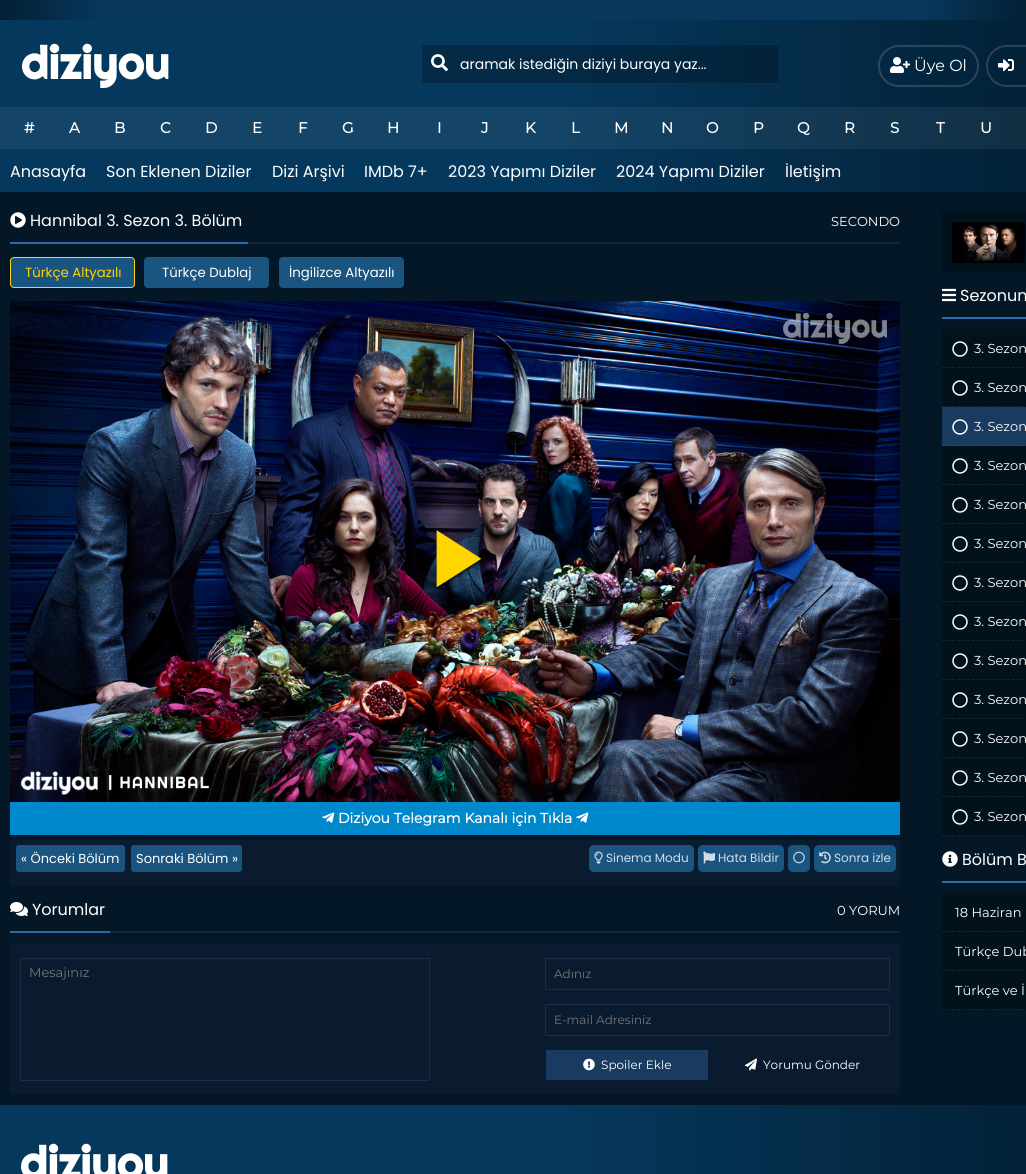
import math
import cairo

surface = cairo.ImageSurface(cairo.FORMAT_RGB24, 1026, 1174)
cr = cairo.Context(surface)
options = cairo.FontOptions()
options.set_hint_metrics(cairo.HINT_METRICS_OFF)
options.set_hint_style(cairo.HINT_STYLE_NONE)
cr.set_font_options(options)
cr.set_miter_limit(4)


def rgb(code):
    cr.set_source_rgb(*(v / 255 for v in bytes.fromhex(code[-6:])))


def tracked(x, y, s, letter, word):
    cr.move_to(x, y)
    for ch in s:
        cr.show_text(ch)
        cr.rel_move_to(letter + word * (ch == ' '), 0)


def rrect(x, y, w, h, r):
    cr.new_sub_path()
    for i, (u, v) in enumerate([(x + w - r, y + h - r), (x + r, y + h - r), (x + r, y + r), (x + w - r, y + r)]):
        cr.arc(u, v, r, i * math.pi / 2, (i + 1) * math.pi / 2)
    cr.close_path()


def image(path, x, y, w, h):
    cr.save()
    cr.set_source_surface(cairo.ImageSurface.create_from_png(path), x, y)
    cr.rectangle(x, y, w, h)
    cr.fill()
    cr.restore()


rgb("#ffffff")
cr.paint()
gradient = cairo.LinearGradient(0, 621, 1026, 621)
gradient.add_color_stop_rgba(0, 0.016, 0.122, 0.204, 1)
gradient.add_color_stop_rgba(0.1, 0.027, 0.216, 0.365, 1)
gradient.add_color_stop_rgba(0.9, 0.027, 0.216, 0.365, 1)
gradient.add_color_stop_rgba(1, 0.016, 0.125, 0.204, 1)
cr.set_source(gradient)
cr.rectangle(0, 0, 1026, 20)
cr.fill()
rgb("#031726")
cr.rectangle(0, 192, 1026, 913)
cr.fill()
gradient = cairo.LinearGradient(0, 106, 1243, 106)
gradient.add_color_stop_rgba(0.45, 0.02, 0.22, 0.365, 1)
gradient.add_color_stop_rgba(1, 0.008, 0.09, 0.149, 1)
cr.set_source(gradient)
cr.rectangle(0, 20, 1026, 172)
cr.fill()
gradient = cairo.LinearGradient(0, 106, 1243, 106)
gradient.add_color_stop_rgba(0.45, 0.078, 0.267, 0.404, 1)
gradient.add_color_stop_rgba(1, 0.067, 0.145, 0.2, 1)
cr.set_source(gradient)
cr.rectangle(0, 107, 1026, 42)
cr.fill()
rrect(879, 46, 99, 40, 20)
cr.set_source_rgba(1, 1, 1, 0.15)
cr.stroke()
image("img/1.png", 890, 57, 20, 16)
rrect(987, 46, 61, 40, 20)
cr.stroke()
image("img/2.png", 998, 59, 16, 13)
rgb("#042a46")
cr.new_path()
cr.move_to(424, 45)
cr.line_to(455, 45)
cr.line_to(455, 83)
cr.line_to(424, 83)
cr.curve_to(423, 83, 422, 82, 422, 81)
cr.line_to(422, 47)
cr.curve_to(422, 46, 423, 45, 424, 45)
cr.close_path()
cr.fill()
image("img/3.png", 431, 54, 17, 18)
cr.set_source_rgba(0, 0, 0, 0.25)
cr.new_path()
cr.move_to(455, 45)
cr.line_to(776, 45)
cr.curve_to(777, 45, 778, 46, 778, 47)
cr.line_to(778, 81)
cr.curve_to(778, 82, 777, 83, 776, 83)
cr.line_to(455, 83)
cr.close_path()
cr.fill()
rgb("#17283c")
cr.rectangle(248, 242, 652, 2)
cr.fill()
rgb("#2d68a9")
cr.rectangle(10, 242, 238, 2)
cr.fill()
image("img/4.png", 10, 212, 16, 16)
rgb("#1a5480")
rrect(10.5, 257.5, 124, 30, 3.5)
cr.fill_preserve()
rgb("#ffd500")
cr.set_line_width(1)
cr.stroke()
rgb("#1a5480")
rrect(144, 257, 125, 31, 4)
cr.fill()
rrect(279, 257, 125, 31, 4)
cr.fill()
image("img/5.png", 10, 301, 890, 501)
rgb("#0088cc")
cr.rectangle(10, 802, 890, 33)
cr.fill()
image("img/6.png", 322, 812, 13, 11)
image("img/6.png", 576, 812, 13, 11)
rgb("#0a1b30")
cr.rectangle(10, 840, 890, 46)
cr.fill()
rgb("#1a5480")
rrect(16, 845, 109, 27, 3)
cr.fill()
rrect(131, 845, 111, 27, 3)
cr.fill()
rrect(589, 845, 105, 27, 5)
cr.fill()
image("img/7.png", 594, 851, 9, 13)
rrect(698, 845, 86, 27, 5)
cr.fill()
image("img/8.png", 703, 851, 12, 13)
rrect(788, 845, 22, 27, 5)
cr.fill()
image("img/9.png", 793, 851, 12, 13)
rrect(814, 845, 82, 27, 5)
cr.fill()
image("img/10.png", 819, 851, 12, 13)
rgb("#02121d")
cr.rectangle(942, 212, 84, 60)
cr.fill()
image("img/11.png", 952, 222, 73, 41)
rgb("#2d68a9")
cr.rectangle(942, 317, 84, 2)
cr.fill()
image("img/12.png", 942, 288, 14, 14)
rgb("#02121d")
cr.rectangle(942, 329, 84, 507)
cr.fill()
cr.new_path()
cr.move_to(942, 367.5)
cr.line_to(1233, 367.5)
rgb("#162434")
cr.set_dash([3, 1.97])
cr.stroke()
image("img/13.png", 952, 341, 16, 16)
cr.new_path()
cr.move_to(942, 406.5)
cr.line_to(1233, 406.5)
cr.stroke()
image("img/13.png", 952, 380, 16, 16)
rgb("#193b60")
cr.rectangle(942, 407, 84, 39)
cr.fill()
cr.new_path()
cr.move_to(942, 445.5)
cr.line_to(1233, 445.5)
rgb("#2b4970")
cr.stroke()
image("img/14.png", 952, 419, 16, 16)
cr.new_path()
cr.move_to(942, 484.5)
cr.line_to(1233, 484.5)
rgb("#162434")
cr.stroke()
image("img/13.png", 952, 458, 16, 16)
cr.new_path()
cr.move_to(942, 523.5)
cr.line_to(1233, 523.5)
cr.stroke()
image("img/13.png", 952, 497, 16, 16)
cr.new_path()
cr.move_to(942, 562.5)
cr.line_to(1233, 562.5)
cr.stroke()
image("img/13.png", 952, 536, 16, 16)
cr.new_path()
cr.move_to(942, 601.5)
cr.line_to(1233, 601.5)
cr.stroke()
image("img/13.png", 952, 575, 16, 16)
cr.new_path()
cr.move_to(942, 640.5)
cr.line_to(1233, 640.5)
cr.stroke()
image("img/13.png", 952, 614, 16, 16)
cr.new_path()
cr.move_to(942, 679.5)
cr.line_to(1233, 679.5)
cr.stroke()
image("img/13.png", 952, 653, 16, 16)
cr.new_path()
cr.move_to(942, 718.5)
cr.line_to(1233, 718.5)
cr.stroke()
image("img/13.png", 952, 692, 16, 16)
cr.new_path()
cr.move_to(942, 757.5)
cr.line_to(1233, 757.5)
cr.stroke()
image("img/13.png", 952, 731, 16, 16)
cr.new_path()
cr.move_to(942, 796.5)
cr.line_to(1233, 796.5)
cr.stroke()
image("img/13.png", 952, 770, 16, 16)
cr.new_path()
cr.move_to(942, 835.5)
cr.line_to(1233, 835.5)
cr.stroke()
image("img/13.png", 952, 809, 16, 16)
rgb("#2d68a9")
cr.rectangle(942, 881, 84, 2)
cr.fill()
image("img/15.png", 942, 851, 16, 16)
rgb("#02121d")
cr.rectangle(942, 893, 84, 117)
cr.fill()
cr.new_path()
cr.move_to(942, 931.5)
cr.line_to(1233, 931.5)
rgb("#162434")
cr.stroke()
cr.new_path()
cr.move_to(942, 970.5)
cr.line_to(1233, 970.5)
cr.stroke()
cr.new_path()
cr.move_to(942, 1009.5)
cr.line_to(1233, 1009.5)
cr.stroke()
rgb("#17283c")
cr.rectangle(110, 931, 790, 2)
cr.fill()
rgb("#2d68a9")
cr.rectangle(10, 931, 100, 2)
cr.fill()
image("img/16.png", 10, 902, 18, 14)
rgb("#0a1b30")
cr.rectangle(10, 943, 890, 151)
cr.fill()
cr.rectangle(20.5, 958.5, 409, 122)
rgb("#1e2c45")
cr.set_dash([])
cr.stroke()
cr.rectangle(545.5, 958.5, 344, 31)
cr.stroke()
cr.rectangle(545.5, 1004.5, 344, 31)
cr.stroke()
rgb("#193b60")
cr.rectangle(546, 1050, 162, 30)
cr.fill()
image("img/17.png", 583, 1058, 12, 13)
image("img/18.png", 745, 1058, 12, 13)
gradient = cairo.LinearGradient(0, 1163, 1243, 1163)
gradient.add_color_stop_rgba(0.45, 0.02, 0.22, 0.365, 1)
gradient.add_color_stop_rgba(1, 0.008, 0.09, 0.149, 1)
cr.set_source(gradient)
cr.rectangle(0, 1105, 1026, 69)
cr.fill()
cr.select_font_face("Righteous", cairo.FONT_SLANT_NORMAL, cairo.FONT_WEIGHT_BOLD)
cr.set_font_size(45)
rgb("#ffffff")
tracked(21, 79, "diziyou", 0.25, 0)
cr.select_font_face("Montserrat Thin")
cr.set_font_size(16)
cr.move_to(914, 71)
cr.show_text("Üye Ol")
cr.select_font_face("Montserrat", cairo.FONT_SLANT_NORMAL, cairo.FONT_WEIGHT_BOLD)
cr.set_font_size(15)
for x, y, s in [
    (24, 133, "#"),
    (69, 133, "A"),
    (114, 133, "B"),
    (160, 133, "C"),
    (205, 133, "D"),
    (252, 133, "E"),
    (298, 133, "F"),
    (342, 133, "G"),
    (387, 133, "H"),
    (437, 133, "I"),
    (481, 133, "J"),
    (525, 133, "K"),
    (571, 133, "L"),
    (614, 133, "M"),
    (661, 133, "N"),
    (706, 133, "O"),
    (753, 133, "P"),
    (797, 133, "Q"),
    (844, 133, "R"),
    (890, 133, "S"),
    (936, 133, "T"),
    (980, 133, "U"),
]:
    cr.move_to(x, y)
    cr.show_text(s)
cr.select_font_face("Poppins")
cr.set_font_size(16)
for x, y, s in [
    (10, 177, "Anasayfa"),
    (106, 177, "Son Eklenen Diziler"),
    (272, 177, "Dizi Arşivi"),
    (364, 177, "IMDb 7+"),
    (448, 177, "2023 Yapımı Diziler"),
    (616, 177, "2024 Yapımı Diziler"),
    (785, 177, "İletişim"),
]:
    cr.move_to(x, y)
    cr.show_text(s)
cr.set_font_size(14)
cr.move_to(460, 69)
cr.show_text("aramak istediğin diziyi buraya yaz...")
cr.set_font_size(16)
cr.move_to(30, 226)
cr.show_text("Hannibal 3. Sezon 3. Bölüm")
cr.select_font_face("Montserrat Thin")
cr.set_font_size(13)
cr.move_to(831, 226)
cr.show_text("SECONDO")
cr.select_font_face("Poppins")
cr.set_font_size(13.25)
rgb("#ffd500")
cr.move_to(25, 277)
cr.show_text("Türkçe Altyazılı")
rgb("#ffffff")
cr.move_to(162, 277)
cr.show_text("Türkçe Dublaj")
cr.move_to(289, 277)
cr.show_text("İngilizce Altyazılı")
cr.select_font_face("Montserrat", cairo.FONT_SLANT_NORMAL, cairo.FONT_WEIGHT_BOLD)
cr.set_font_size(14)
cr.move_to(338, 823)
cr.show_text("Diziyou Telegram Kanalı için Tıkla")
cr.select_font_face("Poppins")
cr.set_font_size(13)
cr.move_to(21, 863)
cr.show_text("« Önceki Bölüm")
cr.move_to(136, 863)
cr.show_text("Sonraki Bölüm »")
cr.set_font_size(12)
rgb("#d1dde6")
for x, y, s in [
    (606, 862, "Sinema Modu"),
    (718, 862, "Hata Bildir"),
    (834, 862, "Sonra izle"),
]:
    cr.move_to(x, y)
    cr.show_text(s)
cr.set_font_size(16)
rgb("#ffffff")
cr.move_to(960, 301)
cr.show_text("Sezonun")
cr.select_font_face("Montserrat Thin")
cr.set_font_size(13)
for x, y, s in [
    (974, 353, "3. Sezon"),
    (974, 392, "3. Sezon"),
    (974, 431, "3. Sezon"),
    (974, 470, "3. Sezon"),
    (974, 509, "3. Sezon"),
    (974, 548, "3. Sezon"),
    (974, 587, "3. Sezon"),
    (974, 626, "3. Sezon"),
    (974, 665, "3. Sezon"),
    (974, 704, "3. Sezon"),
    (974, 743, "3. Sezon"),
    (974, 782, "3. Sezon"),
    (974, 821, "3. Sezon"),
]:
    cr.move_to(x, y)
    cr.show_text(s)
cr.select_font_face("Poppins")
cr.set_font_size(16)
cr.move_to(962, 865)
cr.show_text("Bölüm B")
cr.select_font_face("Montserrat Thin")
cr.set_font_size(13)
for x, y, s in [
    (955, 917, "18 Haziran"),
    (955, 956, "Türkçe Dub"),
    (955, 995, "Türkçe ve İ"),
]:
    cr.move_to(x, y)
    cr.show_text(s)
cr.select_font_face("Poppins")
cr.set_font_size(16)
cr.move_to(32, 915)
cr.show_text("Yorumlar")
cr.select_font_face("Montserrat Thin")
cr.set_font_size(13)
cr.move_to(837, 915)
cr.show_text("0 YORUM")
rgb("#757575")
cr.move_to(29, 977)
cr.show_text("Mesajınız")
cr.set_font_size(12)
cr.move_to(554, 978)
cr.show_text("Adınız")
cr.move_to(554, 1024)
cr.show_text("E-mail Adresiniz")
rgb("#ffffff")
cr.move_to(601, 1069)
cr.show_text("Spoiler Ekle")
cr.move_to(763, 1069)
cr.show_text("Yorumu Gönder")
cr.select_font_face("Righteous", cairo.FONT_SLANT_NORMAL, cairo.FONT_WEIGHT_BOLD)
cr.set_font_size(45)
tracked(20, 1179, "diziyou", 0.25, 0)
surface.write_to_png("page.png")
